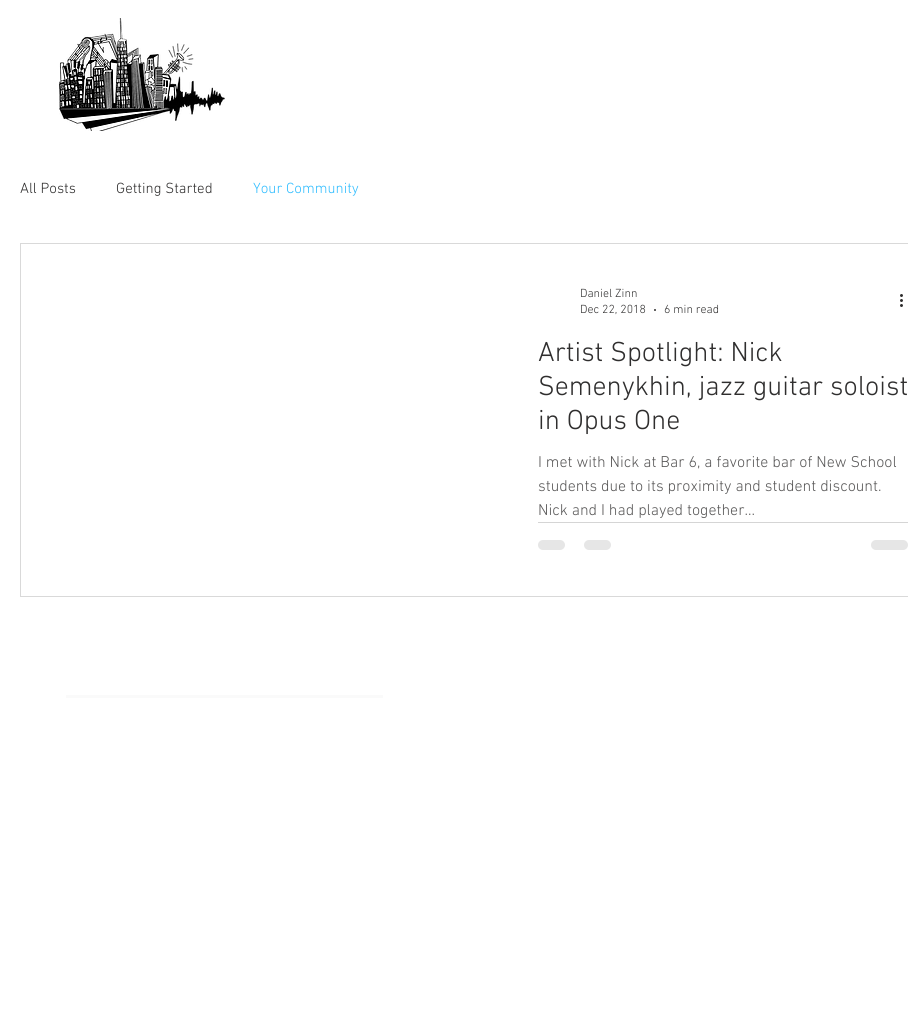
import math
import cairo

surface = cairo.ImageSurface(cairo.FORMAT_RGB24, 908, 1018)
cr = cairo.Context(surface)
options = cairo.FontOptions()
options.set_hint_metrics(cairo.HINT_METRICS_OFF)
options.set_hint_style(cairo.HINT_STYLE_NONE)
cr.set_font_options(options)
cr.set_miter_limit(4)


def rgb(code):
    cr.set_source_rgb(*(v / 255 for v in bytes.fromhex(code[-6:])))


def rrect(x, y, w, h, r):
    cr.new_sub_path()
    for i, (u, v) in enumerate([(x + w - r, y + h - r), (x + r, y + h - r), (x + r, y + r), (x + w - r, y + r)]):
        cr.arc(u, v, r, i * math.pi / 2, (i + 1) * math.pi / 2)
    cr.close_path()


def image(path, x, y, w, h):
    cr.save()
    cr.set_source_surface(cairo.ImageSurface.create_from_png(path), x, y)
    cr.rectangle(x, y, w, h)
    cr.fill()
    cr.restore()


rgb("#ffffff")
cr.paint()
image("img/1.png", 59, 18, 166, 113)
cr.rectangle(20.5, 243.5, 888, 353)
rgb("#d9d9d9")
cr.set_line_width(1)
cr.stroke()
rgb("#2f2e2e")
cr.arc(655, 310, 1, 0, 2 * math.pi)
cr.fill()
image("img/2.png", 900, 294, 3, 13)
rgb("#d5d5d5")
cr.rectangle(538, 522, 370, 1)
cr.fill()
rgb("#e6e6e6")
rrect(538, 540, 27, 10, 5)
cr.fill()
rrect(584, 540, 27, 10, 5)
cr.fill()
rrect(871, 540, 37, 10, 5)
cr.fill()
rgb("#fafafa")
cr.rectangle(66, 695, 317, 3)
cr.fill()
cr.select_font_face("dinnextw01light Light")
cr.set_font_size(15)
rgb("#2f2e2e")
cr.move_to(20, 193)
cr.show_text("All Posts")
cr.move_to(116, 193)
cr.show_text("Getting Started")
rgb("#30bdff")
cr.move_to(253, 193)
cr.show_text("Your Community")
cr.set_font_size(12)
rgb("#2f2e2e")
for x, y, s in [
    (580, 297, "Daniel Zinn"),
    (580, 313, "Dec 22, 2018"),
    (664, 313, "6 min read"),
]:
    cr.move_to(x, y)
    cr.show_text(s)
cr.set_font_size(28)
for x, y, s in [
    (538, 361, "Artist Spotlight: Nick"),
    (538, 395, "Semenykhin, jazz guitar soloist"),
    (538, 429, "in Opus One"),
]:
    cr.move_to(x, y)
    cr.show_text(s)
cr.set_font_size(16)
rgb("#595858")
for x, y, s in [
    (538, 467, "I met with Nick at Bar 6, a favorite bar of New School"),
    (538, 491, "students due to its proximity and student discount."),
    (538, 515, "Nick and I had played together..."),
]:
    cr.move_to(x, y)
    cr.show_text(s)
surface.write_to_png("page.png")
